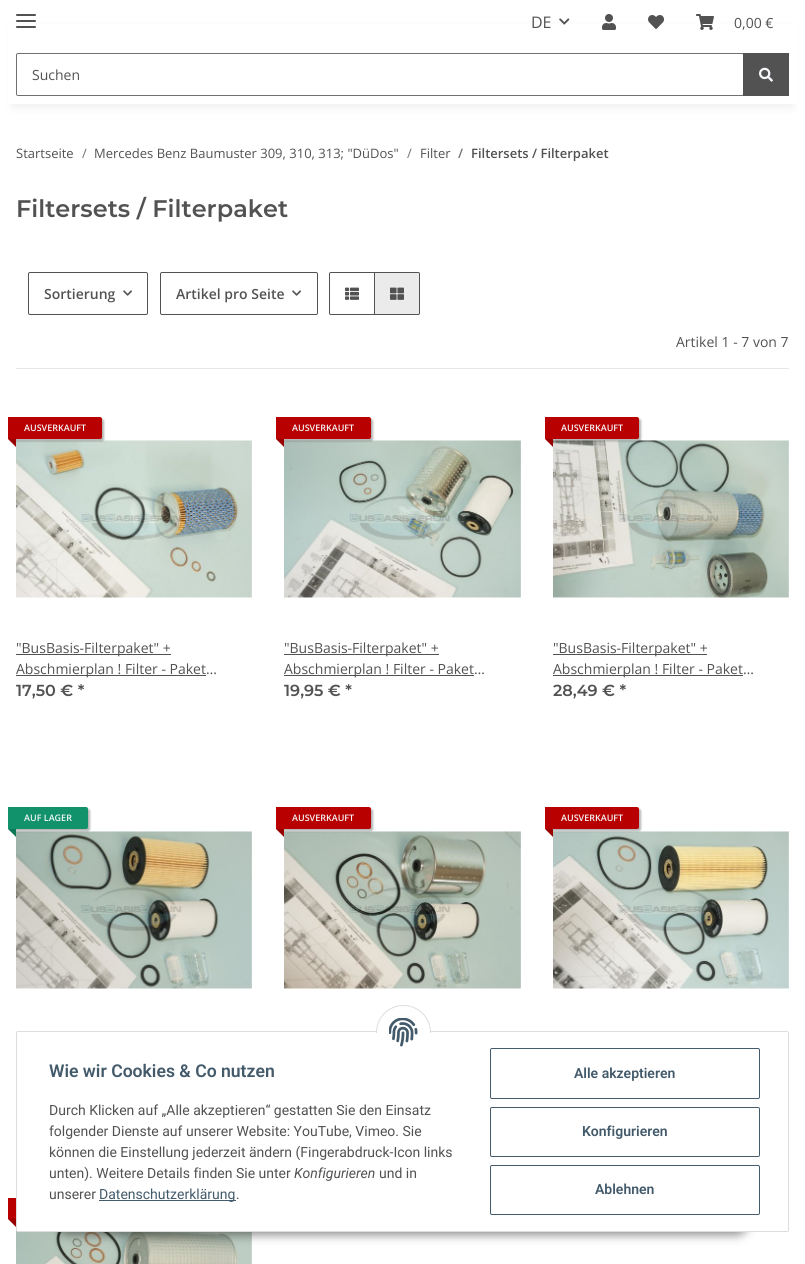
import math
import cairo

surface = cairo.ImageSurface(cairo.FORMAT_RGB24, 805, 1264)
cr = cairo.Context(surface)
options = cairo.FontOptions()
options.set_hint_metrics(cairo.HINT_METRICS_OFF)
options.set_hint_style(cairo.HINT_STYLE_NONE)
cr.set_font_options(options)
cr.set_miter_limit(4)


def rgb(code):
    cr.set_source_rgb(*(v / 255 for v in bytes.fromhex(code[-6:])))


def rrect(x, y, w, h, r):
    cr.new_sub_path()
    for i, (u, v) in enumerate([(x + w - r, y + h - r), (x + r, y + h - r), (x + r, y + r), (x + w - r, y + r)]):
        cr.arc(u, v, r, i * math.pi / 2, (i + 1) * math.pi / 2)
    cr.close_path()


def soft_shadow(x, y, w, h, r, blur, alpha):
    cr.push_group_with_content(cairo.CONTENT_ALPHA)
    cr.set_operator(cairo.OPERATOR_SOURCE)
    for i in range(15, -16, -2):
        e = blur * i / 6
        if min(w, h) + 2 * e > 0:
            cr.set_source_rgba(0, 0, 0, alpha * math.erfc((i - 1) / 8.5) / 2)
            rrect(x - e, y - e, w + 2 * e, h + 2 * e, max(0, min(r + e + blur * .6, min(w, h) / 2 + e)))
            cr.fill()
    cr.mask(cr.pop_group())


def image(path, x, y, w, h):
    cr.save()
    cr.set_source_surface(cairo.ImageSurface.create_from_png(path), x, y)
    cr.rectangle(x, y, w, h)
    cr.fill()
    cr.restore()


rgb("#ffffff")
cr.paint()
rgb("#000000")
soft_shadow(12, 28, 781, 80, 0, 4.5, 0.06)
rgb("#ffffff")
cr.rectangle(8, 24, 789, 80)
cr.fill()
rgb("#525252")
rrect(16, 20, 20, 2, 1)
cr.fill()
rrect(16, 14, 20, 2, 1)
cr.fill()
rrect(16, 26, 20, 2, 1)
cr.fill()
image("img/1.png", 559, 18, 11, 7)
image("img/2.png", 602, 14, 14, 16)
image("img/3.png", 648, 15, 16, 14)
image("img/4.png", 696, 14, 18, 16)
rrect(16.5, 53.5, 727, 42, 1.5)
rgb("#707070")
cr.set_line_width(1)
cr.stroke()
rgb("#525252")
cr.rectangle(743, 53, 46, 43)
cr.fill()
image("img/5.png", 759, 67, 14, 15)
rrect(28.5, 272.5, 119, 42, 1.5)
cr.stroke()
image("img/6.png", 123, 290, 9, 6)
rrect(160.5, 272.5, 157, 42, 1.5)
cr.stroke()
image("img/6.png", 292, 290, 9, 6)
cr.new_path()
cr.move_to(331, 272.5)
cr.line_to(374.5, 272.5)
cr.line_to(374.5, 314.5)
cr.line_to(331, 314.5)
cr.curve_to(330, 314.5, 329.5, 314, 329.5, 313)
cr.line_to(329.5, 274)
cr.curve_to(329.5, 273, 330, 272.5, 331, 272.5)
cr.close_path()
cr.stroke()
image("img/7.png", 345, 287, 14, 13)
rgb("#ebebeb")
cr.new_path()
cr.move_to(374.5, 272.5)
cr.line_to(418, 272.5)
cr.curve_to(419, 272.5, 419.5, 273, 419.5, 274)
cr.line_to(419.5, 313)
cr.curve_to(419.5, 314, 419, 314.5, 418, 314.5)
cr.line_to(374.5, 314.5)
cr.close_path()
cr.fill_preserve()
rgb("#525252")
cr.stroke()
image("img/8.png", 390, 287, 14, 13)
rgb("#e6e6e6")
cr.rectangle(16, 368, 773, 1)
cr.fill()
image("img/9.png", 16, 440, 236, 158)
rgb("#000000")
soft_shadow(10, 419, 94, 22, 2, 1, 0.3)
rgb("#b90000")
cr.new_path()
cr.move_to(8, 417)
cr.line_to(100, 417)
cr.curve_to(101, 417, 102, 418, 102, 419)
cr.line_to(102, 437)
cr.curve_to(102, 438, 101, 439, 100, 439)
cr.line_to(8, 439)
cr.close_path()
cr.fill()
rgb("#9a0000")
cr.new_path()
cr.move_to(16, 439)
cr.line_to(16, 447)
cr.line_to(8, 439)
cr.close_path()
cr.fill()
rgb("#525252")
cr.rectangle(16, 654, 155, 1)
cr.fill()
cr.rectangle(16, 675, 190, 1)
cr.fill()
image("img/10.png", 284, 440, 237, 158)
rgb("#000000")
soft_shadow(278, 419, 95, 22, 2, 1, 0.3)
rgb("#b90000")
cr.new_path()
cr.move_to(276, 417)
cr.line_to(369, 417)
cr.curve_to(370, 417, 371, 418, 371, 419)
cr.line_to(371, 437)
cr.curve_to(371, 438, 370, 439, 369, 439)
cr.line_to(276, 439)
cr.close_path()
cr.fill()
rgb("#9a0000")
cr.new_path()
cr.move_to(284, 439)
cr.line_to(284, 447)
cr.line_to(276, 439)
cr.close_path()
cr.fill()
rgb("#525252")
cr.rectangle(284, 654, 155, 1)
cr.fill()
cr.rectangle(284, 675, 190, 1)
cr.fill()
image("img/11.png", 553, 440, 236, 158)
rgb("#000000")
soft_shadow(547, 419, 94, 22, 2, 1, 0.3)
rgb("#b90000")
cr.new_path()
cr.move_to(545, 417)
cr.line_to(637, 417)
cr.curve_to(638, 417, 639, 418, 639, 419)
cr.line_to(639, 437)
cr.curve_to(639, 438, 638, 439, 637, 439)
cr.line_to(545, 439)
cr.close_path()
cr.fill()
rgb("#9a0000")
cr.new_path()
cr.move_to(553, 439)
cr.line_to(553, 447)
cr.line_to(545, 439)
cr.close_path()
cr.fill()
rgb("#525252")
cr.rectangle(553, 654, 154, 1)
cr.fill()
cr.rectangle(553, 675, 190, 1)
cr.fill()
image("img/12.png", 16, 831, 236, 158)
rgb("#000000")
soft_shadow(10, 809, 80, 22, 2, 1, 0.3)
rgb("#11926b")
cr.new_path()
cr.move_to(8, 807)
cr.line_to(86, 807)
cr.curve_to(87, 807, 88, 808, 88, 809)
cr.line_to(88, 827)
cr.curve_to(88, 828, 87, 829, 86, 829)
cr.line_to(8, 829)
cr.close_path()
cr.fill()
rgb("#0e7757")
cr.new_path()
cr.move_to(16, 829)
cr.line_to(16, 837)
cr.line_to(8, 829)
cr.close_path()
cr.fill()
image("img/13.png", 284, 831, 237, 158)
rgb("#000000")
soft_shadow(278, 809, 95, 22, 2, 1, 0.3)
rgb("#b90000")
cr.new_path()
cr.move_to(276, 807)
cr.line_to(369, 807)
cr.curve_to(370, 807, 371, 808, 371, 809)
cr.line_to(371, 827)
cr.curve_to(371, 828, 370, 829, 369, 829)
cr.line_to(276, 829)
cr.close_path()
cr.fill()
rgb("#9a0000")
cr.new_path()
cr.move_to(284, 829)
cr.line_to(284, 837)
cr.line_to(276, 829)
cr.close_path()
cr.fill()
image("img/14.png", 553, 831, 236, 158)
rgb("#000000")
soft_shadow(547, 809, 94, 22, 2, 1, 0.3)
rgb("#b90000")
cr.new_path()
cr.move_to(545, 807)
cr.line_to(637, 807)
cr.curve_to(638, 807, 639, 808, 639, 809)
cr.line_to(639, 827)
cr.curve_to(639, 828, 638, 829, 637, 829)
cr.line_to(545, 829)
cr.close_path()
cr.fill()
rgb("#9a0000")
cr.new_path()
cr.move_to(553, 829)
cr.line_to(553, 837)
cr.line_to(545, 829)
cr.close_path()
cr.fill()
rgb("#000000")
soft_shadow(10, 1200, 94, 21, 2, 1, 0.3)
rgb("#b90000")
cr.rectangle(8, 1198, 8, 21)
cr.fill()
rgb("#9a0000")
cr.new_path()
cr.move_to(16, 1219)
cr.line_to(16, 1227)
cr.line_to(8, 1219)
cr.close_path()
cr.fill()
image("img/15.png", 16, 1230, 236, 34)
rgb("#000000")
soft_shadow(56, 1203, 693, 32, 16, 5, 0.45)
rgb("#ffffff")
rrect(16.5, 1031.5, 772, 200, 1.5)
cr.fill_preserve()
rgb("#dddddd")
cr.stroke()
rgb("#ffffff")
cr.arc(403.5, 1032.5, 27, 0, 2 * math.pi)
cr.fill_preserve()
rgb("#dddddd")
cr.stroke()
rgb("#ffffff")
cr.rectangle(376, 1033, 55, 27)
cr.fill()
image("img/16.png", 389, 1018, 29, 29)
rgb("#435a6b")
cr.rectangle(99, 1200, 137, 1)
cr.fill()
rrect(490.5, 1048.5, 269, 50, 1.5)
cr.stroke()
rrect(490.5, 1107.5, 269, 49, 1.5)
cr.stroke()
rrect(490.5, 1165.5, 269, 49, 1.5)
cr.stroke()
cr.select_font_face("Open Sans")
cr.set_font_size(16)
rgb("#525252")
cr.move_to(531, 28)
cr.show_text("DE")
cr.set_font_size(14)
cr.move_to(734, 28)
cr.show_text("0,00 €")
cr.move_to(32, 80)
cr.show_text("Suchen")
cr.set_font_size(13)
cr.move_to(16, 158)
cr.show_text("Startseite")
rgb("#707070")
cr.move_to(82, 158)
cr.show_text("/")
rgb("#525252")
cr.move_to(94, 158)
cr.show_text("Mercedes Benz Baumuster 309, 310, 313; \"DüDos\"")
rgb("#707070")
cr.move_to(407, 158)
cr.show_text("/")
rgb("#525252")
cr.move_to(420, 158)
cr.show_text("Filter")
cr.select_font_face("Open Sans SemiBold")
rgb("#707070")
cr.move_to(458, 158)
cr.show_text("/")
rgb("#525252")
cr.move_to(471, 158)
cr.show_text("Filtersets / Filterpaket")
cr.select_font_face("Montserrat SemiBold")
cr.set_font_size(24)
cr.move_to(16, 217)
cr.show_text("Filtersets / Filterpaket")
cr.select_font_face("Open Sans SemiBold")
cr.set_font_size(14)
cr.move_to(44, 299)
cr.show_text("Sortierung")
cr.move_to(176, 299)
cr.show_text("Artikel pro Seite")
cr.select_font_face("Open Sans")
cr.move_to(676, 347)
cr.show_text("Artikel 1 - 7 von 7")
cr.select_font_face("Open Sans SemiBold")
cr.set_font_size(9)
rgb("#f5f7fa")
cr.move_to(24, 431)
cr.show_text("AUSVERKAUFT")
cr.select_font_face("Open Sans")
cr.set_font_size(14)
rgb("#525252")
cr.move_to(16, 653)
cr.show_text("\"BusBasis-Filterpaket\" +")
cr.move_to(16, 674)
cr.show_text("Abschmierplan ! Filter - Paket…")
cr.select_font_face("Montserrat SemiBold")
cr.set_font_size(16)
cr.move_to(16, 696)
cr.show_text("17,50 € *")
cr.select_font_face("Open Sans SemiBold")
cr.set_font_size(9)
rgb("#f5f7fa")
cr.move_to(292, 431)
cr.show_text("AUSVERKAUFT")
cr.select_font_face("Open Sans")
cr.set_font_size(14)
rgb("#525252")
cr.move_to(284, 653)
cr.show_text("\"BusBasis-Filterpaket\" +")
cr.move_to(284, 674)
cr.show_text("Abschmierplan ! Filter - Paket…")
cr.select_font_face("Montserrat SemiBold")
cr.set_font_size(16)
cr.move_to(284, 696)
cr.show_text("19,95 € *")
cr.select_font_face("Open Sans SemiBold")
cr.set_font_size(9)
rgb("#f5f7fa")
cr.move_to(561, 431)
cr.show_text("AUSVERKAUFT")
cr.select_font_face("Open Sans")
cr.set_font_size(14)
rgb("#525252")
cr.move_to(553, 653)
cr.show_text("\"BusBasis-Filterpaket\" +")
cr.move_to(553, 674)
cr.show_text("Abschmierplan ! Filter - Paket…")
cr.select_font_face("Montserrat SemiBold")
cr.set_font_size(16)
cr.move_to(553, 696)
cr.show_text("28,49 € *")
cr.select_font_face("Open Sans SemiBold")
cr.set_font_size(9)
rgb("#f5f7fa")
for x, y, s in [
    (24, 821, "AUF LAGER"),
    (292, 821, "AUSVERKAUFT"),
    (561, 821, "AUSVERKAUFT"),
]:
    cr.move_to(x, y)
    cr.show_text(s)
cr.select_font_face("Roboto SemiBold")
cr.set_font_size(17.6)
rgb("#435a6b")
cr.move_to(49, 1077)
cr.show_text("Wie wir Cookies & Co nutzen")
cr.select_font_face("Roboto")
cr.set_font_size(14)
rgb("#525252")
for x, y, s in [
    (49, 1115, "Durch Klicken auf „Alle akzeptieren“ gestatten Sie den Einsatz"),
    (49, 1136, "folgender Dienste auf unserer Website: YouTube, Vimeo. Sie"),
    (49, 1157, "können die Einstellung jederzeit ändern (Fingerabdruck-Icon links"),
    (49, 1178, "unten). Weitere Details finden Sie unter"),
]:
    cr.move_to(x, y)
    cr.show_text(s)
cr.select_font_face("Roboto", cairo.FONT_SLANT_ITALIC)
cr.move_to(294, 1178)
cr.show_text("Konfigurieren")
cr.select_font_face("Roboto")
cr.move_to(379, 1178)
cr.show_text("und in")
cr.move_to(49, 1199)
cr.show_text("unserer")
rgb("#435a6b")
cr.move_to(99, 1199)
cr.show_text("Datenschutzerklärung")
rgb("#525252")
cr.move_to(236, 1199)
cr.show_text(".")
cr.select_font_face("Roboto SemiBold")
rgb("#435a6b")
for x, y, s in [
    (574, 1078, "Alle akzeptieren"),
    (582, 1136, "Konfigurieren"),
    (595, 1194, "Ablehnen"),
]:
    cr.move_to(x, y)
    cr.show_text(s)
surface.write_to_png("page.png")
